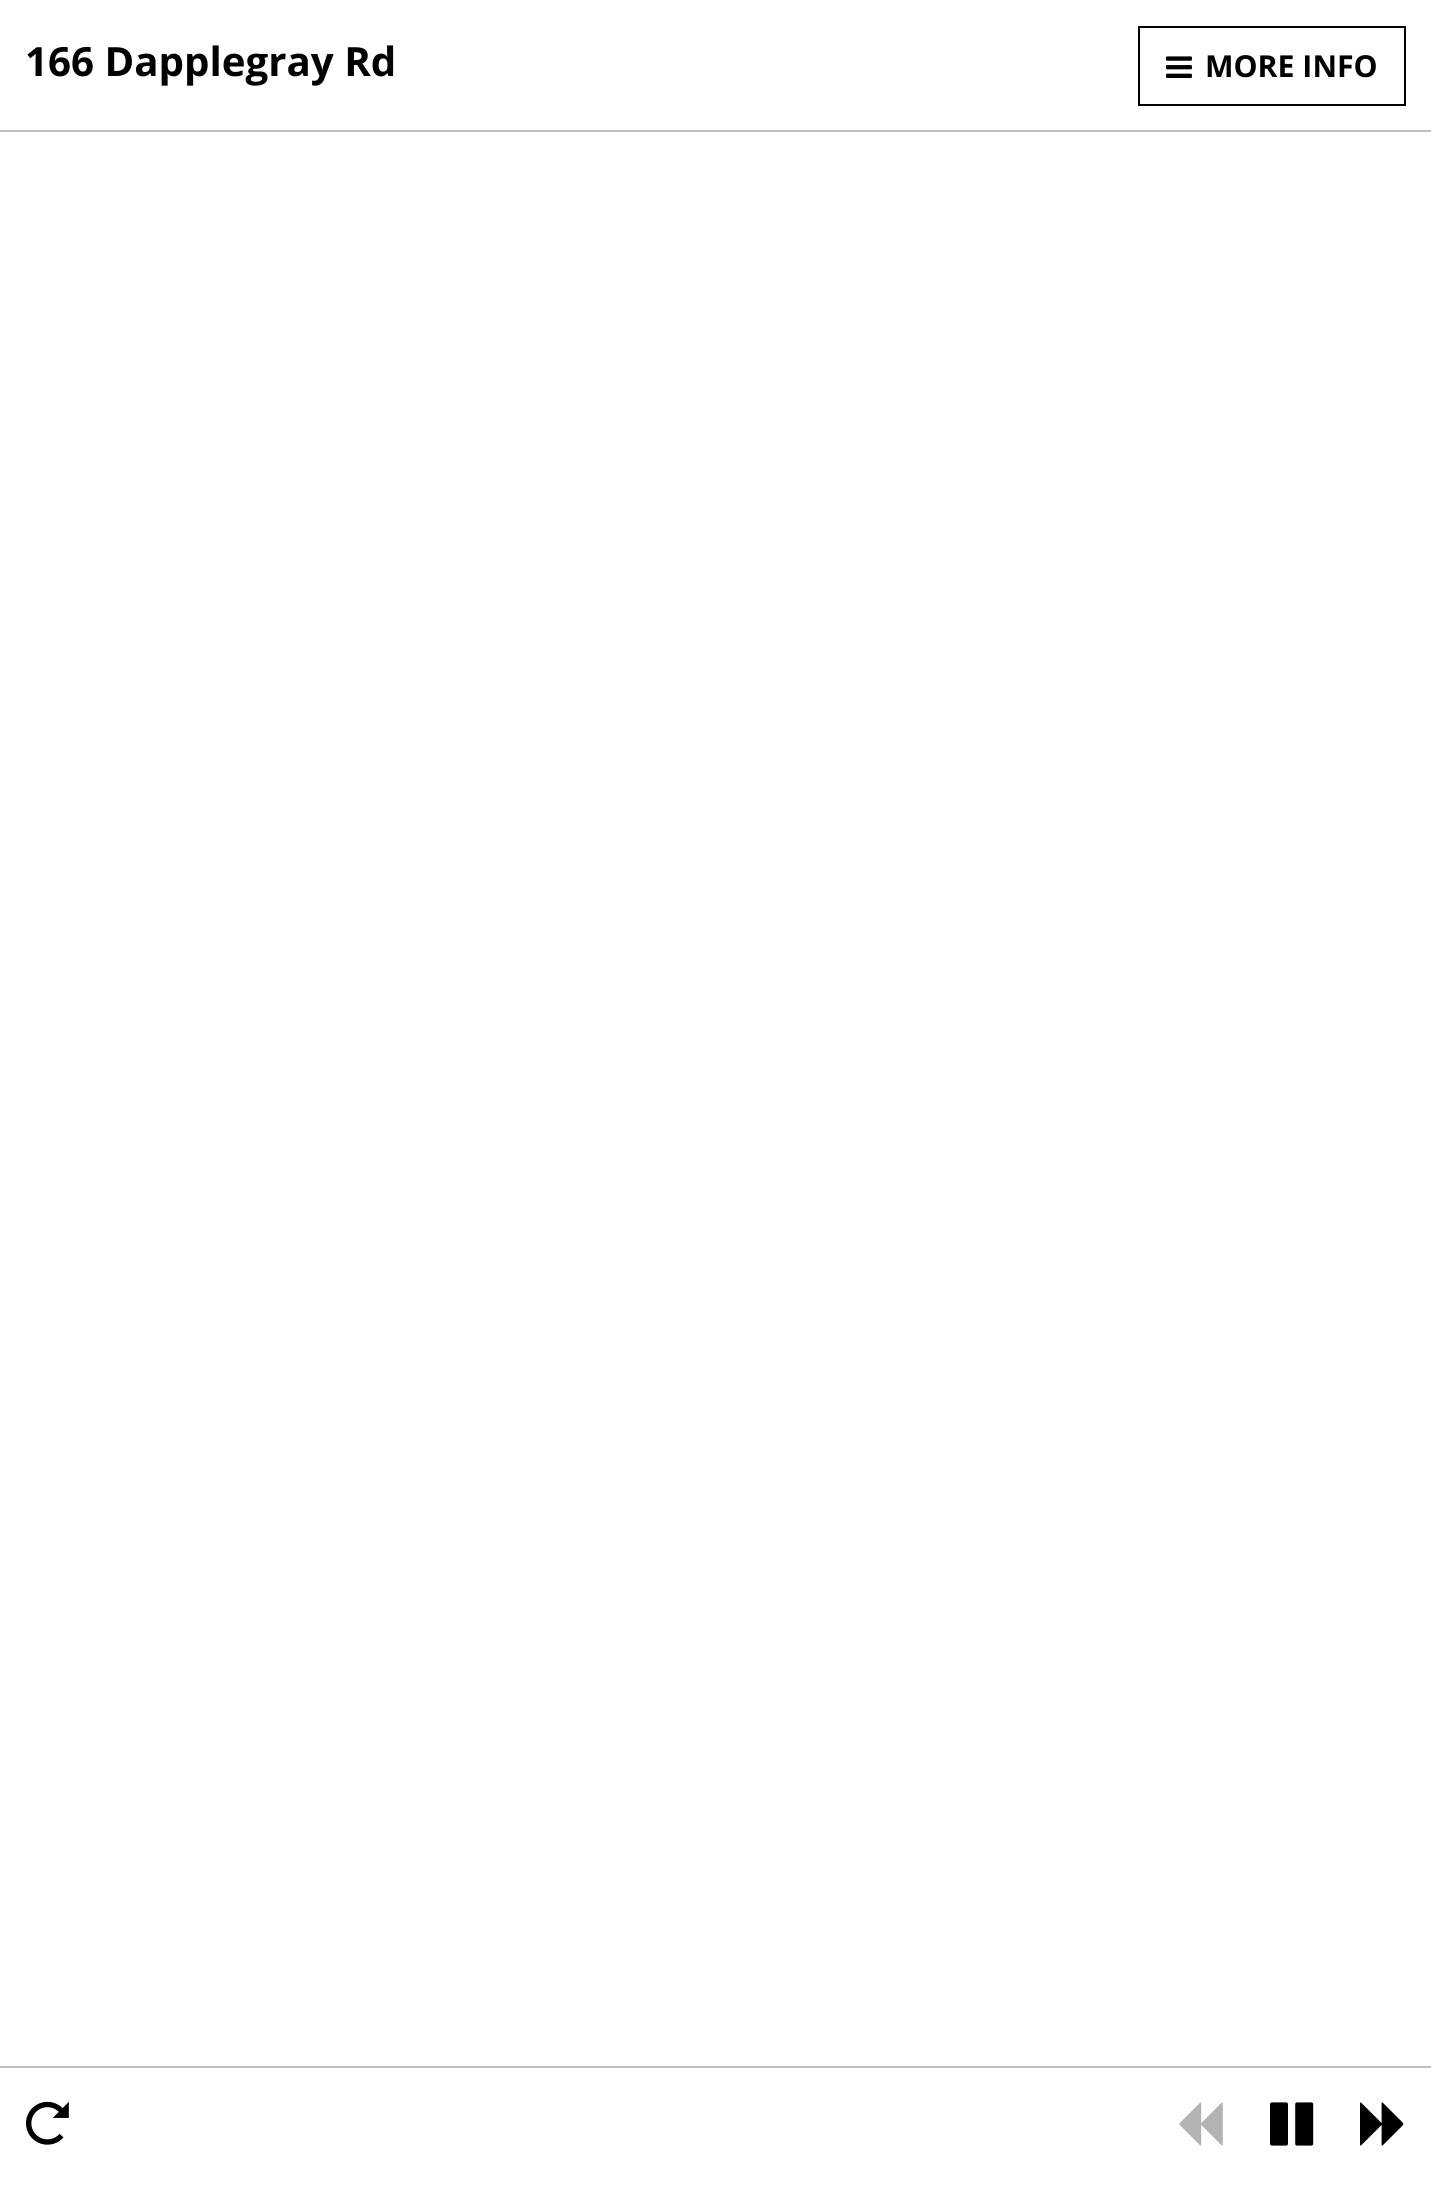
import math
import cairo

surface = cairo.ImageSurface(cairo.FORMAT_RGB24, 1431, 2185)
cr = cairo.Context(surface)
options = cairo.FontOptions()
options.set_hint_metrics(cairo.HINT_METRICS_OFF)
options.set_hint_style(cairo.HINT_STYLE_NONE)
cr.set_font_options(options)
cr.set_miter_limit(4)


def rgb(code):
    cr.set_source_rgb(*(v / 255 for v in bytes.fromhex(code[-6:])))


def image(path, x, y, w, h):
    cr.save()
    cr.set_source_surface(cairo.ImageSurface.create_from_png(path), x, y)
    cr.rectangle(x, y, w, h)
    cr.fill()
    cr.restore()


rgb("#ffffff")
cr.paint()
rgb("#bfbfbf")
cr.rectangle(0, 130, 1431, 2)
cr.fill()
cr.rectangle(1139, 27, 266, 78)
rgb("#000000")
cr.stroke()
image("img/1.png", 1166, 56, 26, 22)
rgb("#bfbfbf")
cr.rectangle(0, 2066, 1431, 2)
cr.fill()
image("img/2.png", 26, 2101, 43, 44)
image("img/3.png", 1179, 2102, 44, 44)
image("img/4.png", 1270, 2102, 44, 44)
image("img/5.png", 1360, 2102, 44, 44)
cr.select_font_face("Open Sans", cairo.FONT_SLANT_NORMAL, cairo.FONT_WEIGHT_BOLD)
cr.set_font_size(40.25)
rgb("#000000")
cr.move_to(25, 76)
cr.show_text("166 Dapplegray Rd")
cr.set_font_size(30.25)
cr.move_to(1205, 77)
cr.show_text("MORE INFO")
surface.write_to_png("page.png")
